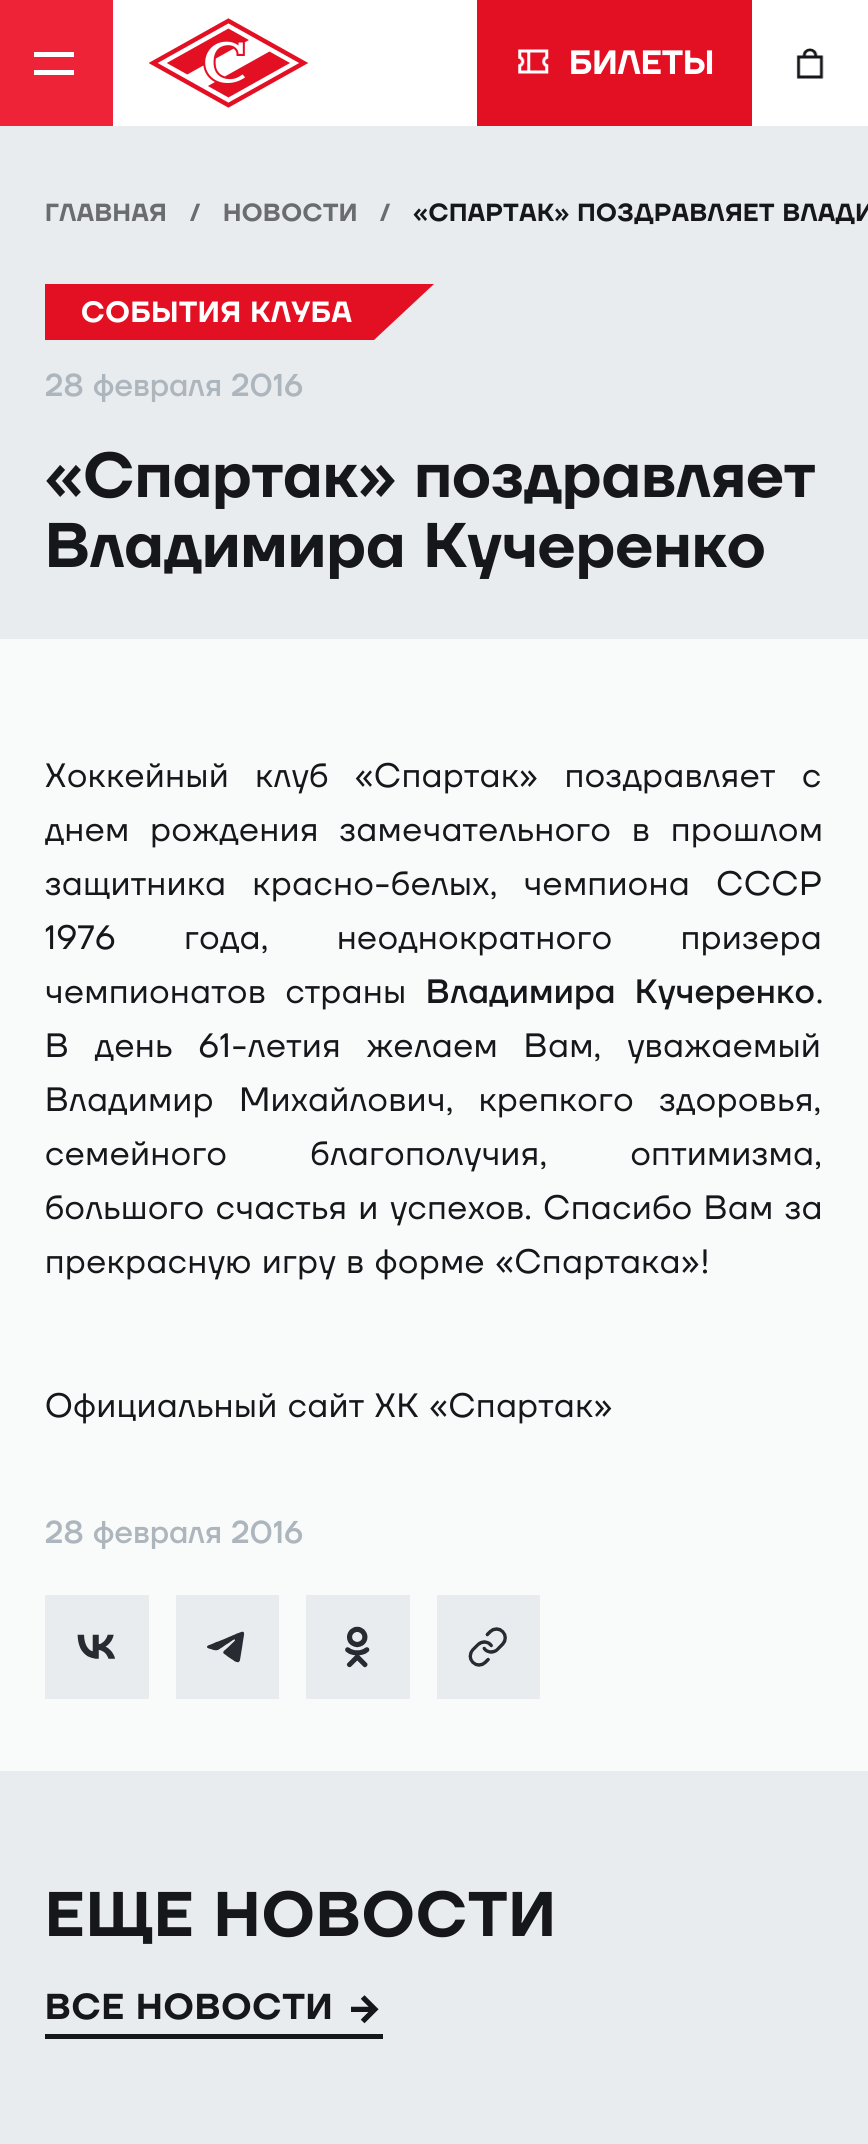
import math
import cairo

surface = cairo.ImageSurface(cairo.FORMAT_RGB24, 868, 2144)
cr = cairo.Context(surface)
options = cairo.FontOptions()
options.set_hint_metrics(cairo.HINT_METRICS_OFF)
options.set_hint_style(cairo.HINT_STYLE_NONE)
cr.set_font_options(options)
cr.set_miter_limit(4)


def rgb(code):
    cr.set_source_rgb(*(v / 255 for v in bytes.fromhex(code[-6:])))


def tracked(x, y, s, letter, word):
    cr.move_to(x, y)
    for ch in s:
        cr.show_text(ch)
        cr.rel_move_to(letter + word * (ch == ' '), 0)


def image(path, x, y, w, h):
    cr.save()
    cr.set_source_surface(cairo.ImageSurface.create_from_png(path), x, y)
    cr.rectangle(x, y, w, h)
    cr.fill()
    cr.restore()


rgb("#e9ecef")
cr.paint()
for x, y, w, h, color in [
    (113, 0, 755, 126, "#ffffff"),
    (0, 0, 113, 126, "#ef2338"),
    (34, 52, 40, 5, "#ffffff"),
    (34, 70, 40, 5, "#ffffff"),
]:
    rgb(color)
    cr.rectangle(x, y, w, h)
    cr.fill()
image("img/1.png", 149, 18, 159, 90)
rgb("#e31024")
cr.rectangle(477, 0, 275, 126)
cr.fill()
image("img/2.png", 518, 49, 31, 25)
image("img/3.png", 796, 48, 28, 31)
cr.new_path()
cr.move_to(344, 284)
cr.line_to(434, 284)
cr.line_to(374, 340)
cr.line_to(284, 340)
cr.close_path()
cr.fill()
for x, y, w, h, color in [
    (45, 284, 299, 56, "#e31024"),
    (0, 639, 868, 1132, "#f9fafa"),
    (45, 1595, 104, 104, "#e9ecef"),
]:
    rgb(color)
    cr.rectangle(x, y, w, h)
    cr.fill()
image("img/4.png", 77, 1634, 38, 25)
cr.rectangle(176, 1595, 103, 104)
cr.fill()
image("img/5.png", 207, 1631, 38, 32)
cr.rectangle(306, 1595, 104, 104)
cr.fill()
image("img/6.png", 345, 1626, 25, 42)
cr.rectangle(437, 1595, 103, 104)
cr.fill()
image("img/7.png", 468, 1627, 39, 40)
rgb("#16171b")
cr.rectangle(45, 2034, 338, 5)
cr.fill()
image("img/8.png", 351, 1995, 28, 29)
cr.select_font_face("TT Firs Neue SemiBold")
cr.set_font_size(33.75)
rgb("#ffffff")
cr.move_to(569, 74)
cr.show_text("БИЛЕТЫ")
cr.set_font_size(24.75)
rgb("#6a6c70")
for x, y, s in [
    (45, 221, "ГЛАВНАЯ"),
    (190, 221, "/"),
    (223, 221, "НОВОСТИ"),
    (380, 221, "/"),
]:
    tracked(x, y, s, 0.5, 0)
rgb("#16171b")
tracked(413, 221, "«СПАРТАК» ПОЗДРАВЛЯЕТ ВЛАДИ", 0.5, 0)
cr.set_font_size(29.25)
rgb("#ffffff")
tracked(81, 322, "СОБЫТИЯ КЛУБА", 0.6, 0)
cr.select_font_face("TT Firs Neue Medium")
cr.set_font_size(31.5)
rgb("#adb5bd")
tracked(45, 396, "28 февраля 2016", 0.3, 0)
cr.select_font_face("TT Firs Neue SemiBold")
cr.set_font_size(63)
rgb("#16171b")
tracked(45, 497, "«Спартак» поздравляет", 0.25, 0)
tracked(45, 567, "Владимира Кучеренко", 0.25, 0)
cr.select_font_face("TT Firs Neue")
cr.set_font_size(33.75)
tracked(45, 787, "Хоккейный клуб «Спартак» поздравляет с", 0.65, 16)
tracked(45, 841, "днем рождения замечательного в прошлом", 0.65, 10.5)
tracked(45, 895, "защитника красно-белых, чемпиона СССР", 0.65, 16)
tracked(45, 949, "1976 года, неоднократного призера", 0.65, 58)
tracked(45, 1003, "чемпионатов страны", 0.65, 9)
cr.select_font_face("TT Firs Neue Medium")
tracked(426, 1003, "Владимира Кучеренко", 0.65, 9)
cr.select_font_face("TT Firs Neue")
tracked(816, 1003, ".", 0.65, 0)
tracked(45, 1057, "В день 61-летия желаем Вам, уважаемый", 0.65, 15.5)
tracked(45, 1111, "Владимир Михайлович, крепкого здоровья,", 0.65, 15)
tracked(45, 1165, "семейного благополучия, оптимизма,", 0.65, 73)
tracked(45, 1219, "большого счастья и успехов. Спасибо Вам за", 0.65, 1)
tracked(45, 1273, "прекрасную игру в форме «Спартака»!", 0.65, 0)
tracked(45, 1417, "Официальный сайт ХК «Спартак»", 0.65, 0)
cr.select_font_face("TT Firs Neue Medium")
cr.set_font_size(31.5)
rgb("#adb5bd")
tracked(45, 1543, "28 февраля 2016", 0.3, 0)
cr.select_font_face("TT Firs Neue SemiBold")
cr.set_font_size(63)
rgb("#16171b")
tracked(45, 1936, "ЕЩЕ НОВОСТИ", 1.25, 0)
cr.set_font_size(36)
tracked(45, 2019, "ВСЕ НОВОСТИ", 0.9, 0)
surface.write_to_png("page.png")
